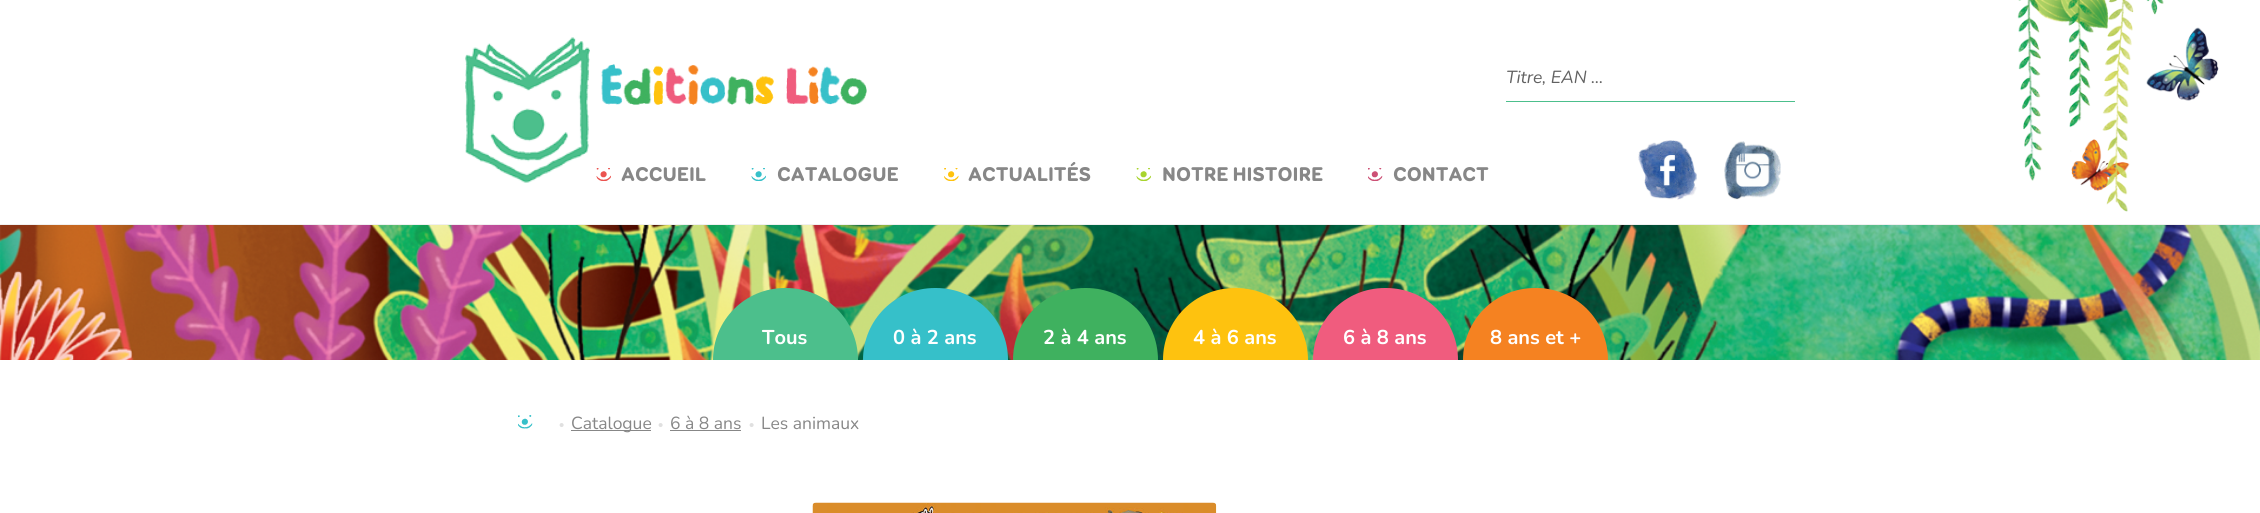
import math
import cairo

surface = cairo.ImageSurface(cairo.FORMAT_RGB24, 2260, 513)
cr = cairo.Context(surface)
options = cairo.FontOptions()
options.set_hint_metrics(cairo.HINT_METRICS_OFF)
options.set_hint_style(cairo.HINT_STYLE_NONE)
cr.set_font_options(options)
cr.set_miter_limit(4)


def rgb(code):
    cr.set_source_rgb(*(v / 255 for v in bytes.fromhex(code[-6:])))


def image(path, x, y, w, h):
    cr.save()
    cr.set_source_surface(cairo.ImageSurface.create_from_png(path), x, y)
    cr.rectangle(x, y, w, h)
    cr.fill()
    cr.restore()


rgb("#ffffff")
cr.paint()
image("img/1.png", 2017, 0, 202, 212)
rgb("#f0f0f0")
cr.rectangle(0, 224, 2260, 1)
cr.fill()
image("img/2.png", 601, 64, 266, 41)
rgb("#4cbf8c")
cr.rectangle(1506, 101, 289, 1)
cr.fill()
image("img/3.png", 465, 37, 125, 146)
image("img/4.png", 596, 168, 15, 13)
image("img/5.png", 751, 168, 15, 13)
image("img/6.png", 944, 168, 15, 13)
image("img/7.png", 1136, 168, 15, 13)
image("img/8.png", 1368, 168, 15, 13)
image("img/9.png", 1638, 140, 59, 60)
image("img/10.png", 1724, 141, 57, 59)
image("img/11.png", 0, 225, 2260, 135)
cr.new_path()
cr.move_to(785, 288)
cr.line_to(786, 288)
cr.curve_to(826, 288, 858, 320, 858, 360)
cr.line_to(713, 360)
cr.curve_to(713, 320, 745, 288, 785, 288)
cr.close_path()
cr.fill()
rgb("#36c0c9")
cr.new_path()
cr.move_to(935, 288)
cr.line_to(936, 288)
cr.curve_to(976, 288, 1008, 320, 1008, 360)
cr.line_to(863, 360)
cr.curve_to(863, 320, 895, 288, 935, 288)
cr.close_path()
cr.fill()
rgb("#3fb15f")
cr.new_path()
cr.move_to(1085, 288)
cr.line_to(1086, 288)
cr.curve_to(1126, 288, 1158, 320, 1158, 360)
cr.line_to(1013, 360)
cr.curve_to(1013, 320, 1045, 288, 1085, 288)
cr.close_path()
cr.fill()
rgb("#fec20f")
cr.new_path()
cr.move_to(1235, 288)
cr.line_to(1236, 288)
cr.curve_to(1276, 288, 1308, 320, 1308, 360)
cr.line_to(1163, 360)
cr.curve_to(1163, 320, 1195, 288, 1235, 288)
cr.close_path()
cr.fill()
rgb("#f05c7e")
cr.new_path()
cr.move_to(1385, 288)
cr.line_to(1386, 288)
cr.curve_to(1426, 288, 1458, 320, 1458, 360)
cr.line_to(1313, 360)
cr.curve_to(1313, 320, 1345, 288, 1385, 288)
cr.close_path()
cr.fill()
rgb("#f58221")
cr.new_path()
cr.move_to(1535, 288)
cr.line_to(1536, 288)
cr.curve_to(1576, 288, 1608, 320, 1608, 360)
cr.line_to(1463, 360)
cr.curve_to(1463, 320, 1495, 288, 1535, 288)
cr.close_path()
cr.fill()
image("img/12.png", 518, 415, 15, 14)
rgb("#878787")
cr.rectangle(571, 430, 80, 1)
cr.fill()
cr.rectangle(670, 430, 71, 1)
cr.fill()
image("img/13.png", 812, 502, 405, 11)
cr.select_font_face("Nunito", cairo.FONT_SLANT_ITALIC)
cr.set_font_size(17.5)
rgb("#616161")
cr.move_to(1506, 83)
cr.show_text("Titre, EAN ...")
cr.select_font_face("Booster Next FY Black")
cr.set_font_size(20)
rgb("#878787")
for x, y, s in [
    (621, 181, "ACCUEIL"),
    (777, 181, "CATALOGUE"),
    (968, 181, "ACTUALITÉS"),
    (1162, 181, "NOTRE HISTOIRE"),
    (1393, 181, "CONTACT"),
]:
    cr.move_to(x, y)
    cr.show_text(s)
cr.select_font_face("Nunito", cairo.FONT_SLANT_NORMAL, cairo.FONT_WEIGHT_BOLD)
rgb("#ffffff")
for x, y, s in [
    (762, 344, "Tous"),
    (893, 344, "0 à 2 ans"),
    (1043, 344, "2 à 4 ans"),
    (1193, 344, "4 à 6 ans"),
    (1343, 344, "6 à 8 ans"),
    (1490, 344, "8 ans et +"),
]:
    cr.move_to(x, y)
    cr.show_text(s)
cr.select_font_face("Liberation Serif", cairo.FONT_SLANT_NORMAL, cairo.FONT_WEIGHT_BOLD)
cr.set_font_size(15)
rgb("#e0e0e0")
cr.move_to(559, 430)
cr.show_text("•")
cr.select_font_face("Nunito")
cr.set_font_size(17.5)
rgb("#878787")
cr.move_to(571, 429)
cr.show_text("Catalogue")
cr.select_font_face("Liberation Serif", cairo.FONT_SLANT_NORMAL, cairo.FONT_WEIGHT_BOLD)
cr.set_font_size(15)
rgb("#e0e0e0")
cr.move_to(658, 430)
cr.show_text("•")
cr.select_font_face("Nunito")
cr.set_font_size(17.5)
rgb("#878787")
cr.move_to(670, 429)
cr.show_text("6 à 8 ans")
cr.select_font_face("Liberation Serif", cairo.FONT_SLANT_NORMAL, cairo.FONT_WEIGHT_BOLD)
cr.set_font_size(15)
rgb("#e0e0e0")
cr.move_to(749, 430)
cr.show_text("•")
cr.select_font_face("Nunito")
cr.set_font_size(17.5)
rgb("#878787")
cr.move_to(761, 429)
cr.show_text("Les animaux")
surface.write_to_png("page.png")
